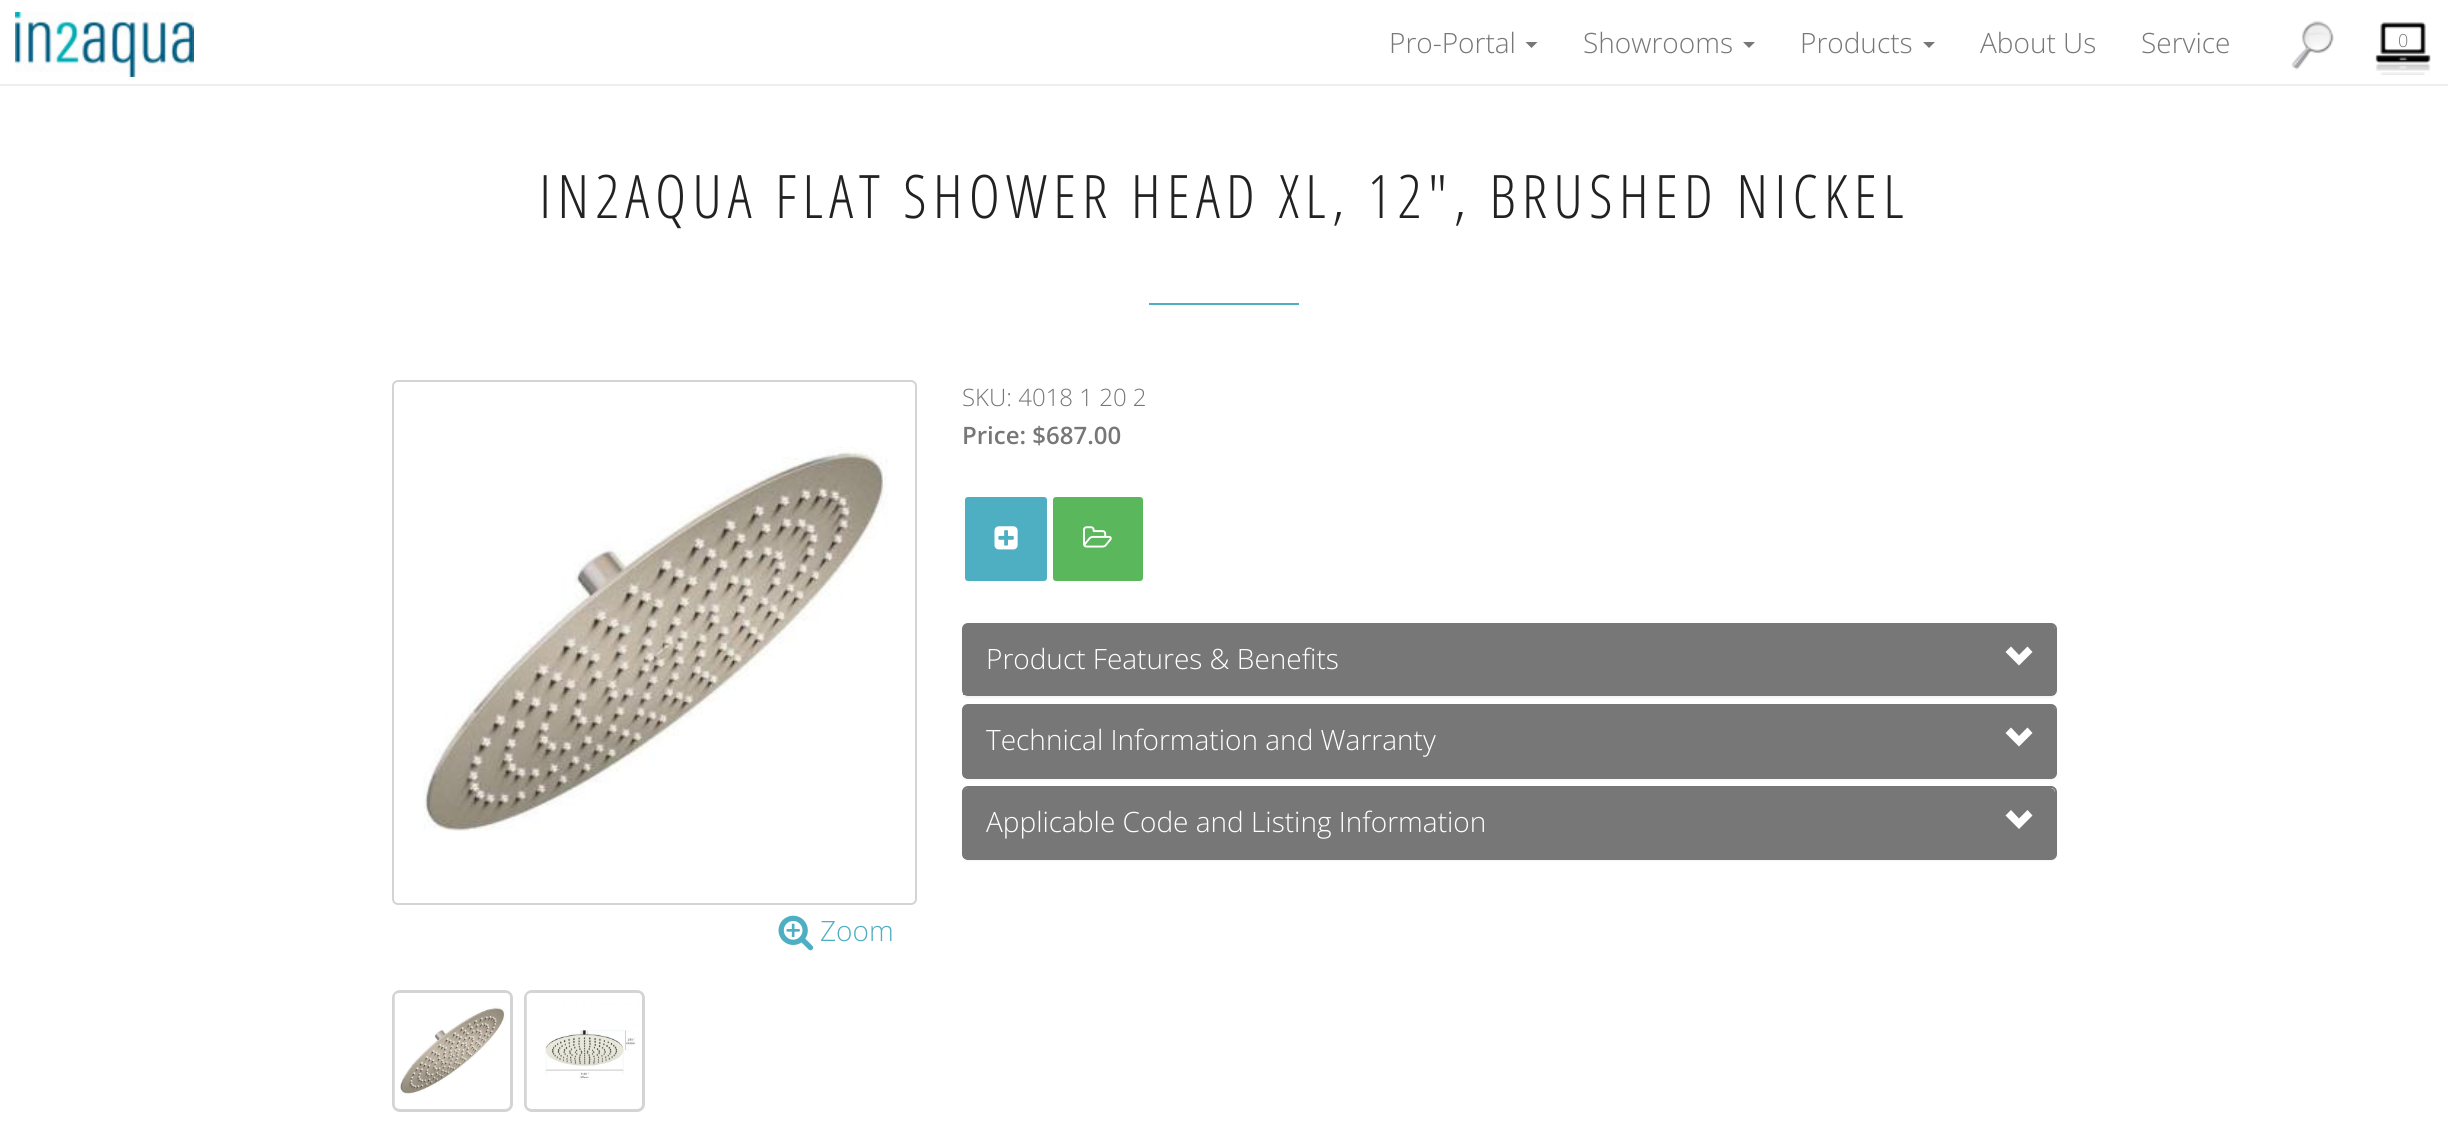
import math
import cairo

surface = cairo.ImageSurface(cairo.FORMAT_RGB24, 2448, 1123)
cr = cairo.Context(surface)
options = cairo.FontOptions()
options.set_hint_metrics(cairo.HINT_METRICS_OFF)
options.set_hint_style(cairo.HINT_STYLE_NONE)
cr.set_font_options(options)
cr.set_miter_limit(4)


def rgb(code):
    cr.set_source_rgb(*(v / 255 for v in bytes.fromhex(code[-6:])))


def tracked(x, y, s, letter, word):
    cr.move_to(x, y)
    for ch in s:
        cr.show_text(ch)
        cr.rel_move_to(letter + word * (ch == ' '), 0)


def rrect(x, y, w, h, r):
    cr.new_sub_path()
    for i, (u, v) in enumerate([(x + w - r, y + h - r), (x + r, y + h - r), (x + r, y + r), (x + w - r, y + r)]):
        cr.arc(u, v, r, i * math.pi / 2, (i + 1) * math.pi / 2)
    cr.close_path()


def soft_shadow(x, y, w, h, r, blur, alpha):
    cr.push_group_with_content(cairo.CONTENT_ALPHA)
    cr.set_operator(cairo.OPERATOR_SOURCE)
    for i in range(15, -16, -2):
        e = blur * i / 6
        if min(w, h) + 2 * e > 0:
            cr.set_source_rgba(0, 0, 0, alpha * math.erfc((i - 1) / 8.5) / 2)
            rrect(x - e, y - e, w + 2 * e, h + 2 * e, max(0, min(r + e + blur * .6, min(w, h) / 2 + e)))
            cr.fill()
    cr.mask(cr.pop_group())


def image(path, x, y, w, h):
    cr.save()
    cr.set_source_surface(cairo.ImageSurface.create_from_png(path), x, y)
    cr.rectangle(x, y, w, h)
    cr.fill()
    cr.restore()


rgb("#ffffff")
cr.paint()
rgb("#eeeeee")
cr.rectangle(0, 84, 2448, 2)
cr.fill()
image("img/1.png", 15, 12, 179, 65)
rgb("#777777")
cr.new_path()
cr.move_to(1525.5, 42)
cr.line_to(1537.5, 42)
cr.line_to(1531.5, 48)
cr.close_path()
cr.fill()
cr.new_path()
cr.move_to(1743, 42)
cr.line_to(1755, 42)
cr.line_to(1749, 48)
cr.close_path()
cr.fill()
cr.new_path()
cr.move_to(1923, 42)
cr.line_to(1935, 42)
cr.line_to(1929, 48)
cr.close_path()
cr.fill()
image("img/2.png", 2291, 20, 43, 50)
image("img/3.png", 2375, 22, 56, 53)
rgb("#4fafc2")
cr.rectangle(1149, 303, 150, 2)
cr.fill()
rrect(963.5, 495.5, 85, 87, 4.5)
cr.fill_preserve()
rgb("#ffffff")
cr.set_line_width(3)
cr.stroke()
image("img/4.png", 994, 526, 24, 24)
rgb("#5bb75b")
rrect(1051.5, 495.5, 93, 87, 4.5)
cr.fill_preserve()
rgb("#ffffff")
cr.stroke()
image("img/5.png", 1083, 526, 29, 22)
rgb("#000000")
soft_shadow(962, 624, 1095, 74, 6, 1, 0.05)
rrect(963, 624, 1093, 71, 5)
rgb("#777777")
cr.set_line_width(2)
cr.stroke()
cr.new_path()
cr.move_to(968, 624)
cr.line_to(2050, 624)
cr.curve_to(2053, 624, 2055, 626, 2055, 629)
cr.line_to(2055, 695)
cr.line_to(963, 695)
cr.line_to(963, 629)
cr.curve_to(963, 626, 965, 624, 968, 624)
cr.close_path()
cr.fill()
rgb("#ffffff")
cr.new_path()
cr.move_to(2005.5, 652)
cr.line_to(2019, 665.5)
cr.line_to(2032.5, 652)
cr.line_to(2027.5, 646.5)
cr.line_to(2019, 655)
cr.line_to(2011, 646.5)
cr.close_path()
cr.fill()
rgb("#000000")
soft_shadow(962, 705, 1095, 75, 6, 1, 0.05)
rrect(963, 705, 1093, 73, 5)
rgb("#777777")
cr.stroke()
cr.new_path()
cr.move_to(968, 705)
cr.line_to(2050, 705)
cr.curve_to(2053, 705, 2055, 707, 2055, 710)
cr.line_to(2055, 777)
cr.line_to(963, 777)
cr.line_to(963, 710)
cr.curve_to(963, 707, 965, 705, 968, 705)
cr.close_path()
cr.fill()
rgb("#ffffff")
cr.new_path()
cr.move_to(2005.5, 733)
cr.line_to(2019, 746.5)
cr.line_to(2032.5, 733)
cr.line_to(2027.5, 727.5)
cr.line_to(2019, 736)
cr.line_to(2011, 727.5)
cr.close_path()
cr.fill()
rgb("#000000")
soft_shadow(962, 788, 1095, 73, 6, 1, 0.05)
rgb("#ffffff")
rrect(963, 787, 1093, 72, 5)
cr.fill_preserve()
rgb("#777777")
cr.stroke()
cr.new_path()
cr.move_to(968, 788)
cr.line_to(2050, 788)
cr.curve_to(2053, 788, 2055, 790, 2055, 793)
cr.line_to(2055, 858)
cr.line_to(963, 858)
cr.line_to(963, 793)
cr.curve_to(963, 790, 965, 788, 968, 788)
cr.close_path()
cr.fill()
rgb("#ffffff")
cr.new_path()
cr.move_to(2005.5, 815.5)
cr.line_to(2019, 829)
cr.line_to(2032.5, 815.5)
cr.line_to(2027.5, 810)
cr.line_to(2019, 818.5)
cr.line_to(2011, 810)
cr.close_path()
cr.fill()
rrect(393, 381, 523, 523, 5)
rgb("#d4d4d4")
cr.stroke()
image("img/6.png", 423, 447, 465, 384)
image("img/7.png", 778, 915, 36, 36)
rrect(393.5, 991.5, 118, 119, 6.5)
cr.set_line_width(3)
cr.stroke()
rrect(525.5, 991.5, 118, 119, 6.5)
cr.stroke()
image("img/8.png", 394, 993, 116, 116)
image("img/9.png", 526, 993, 116, 116)
cr.select_font_face("Open Sans Light")
cr.set_font_size(28)
rgb("#777777")
for x, y, s in [
    (1389, 53, "Pro-Portal"),
    (1583, 53, "Showrooms"),
    (1800, 53, "Products"),
    (1980, 53, "About Us"),
    (2141, 53, "Service"),
]:
    cr.move_to(x, y)
    cr.show_text(s)
cr.set_font_size(18)
cr.move_to(2398, 47)
cr.show_text("0")
cr.select_font_face("Open Sans Condensed Light")
cr.set_font_size(60)
rgb("#222222")
tracked(539, 218, "IN2AQUA FLAT SHOWER HEAD XL, 12\", BRUSHED NICKEL", 6, 0)
cr.select_font_face("Open Sans Light")
cr.set_font_size(24)
rgb("#777777")
cr.move_to(962, 406)
cr.show_text("SKU: 4018 1 20 2")
cr.select_font_face("Open Sans SemiBold")
cr.move_to(962, 444)
cr.show_text("Price: $687.00")
cr.select_font_face("Open Sans Light")
cr.set_font_size(28)
rgb("#ffffff")
for x, y, s in [
    (986, 669, "Product Features & Benefits"),
    (986, 750, "Technical Information and Warranty"),
    (986, 832, "Applicable Code and Listing Information"),
]:
    cr.move_to(x, y)
    cr.show_text(s)
rgb("#4fafc2")
cr.move_to(820, 941)
cr.show_text("Zoom")
surface.write_to_png("page.png")
